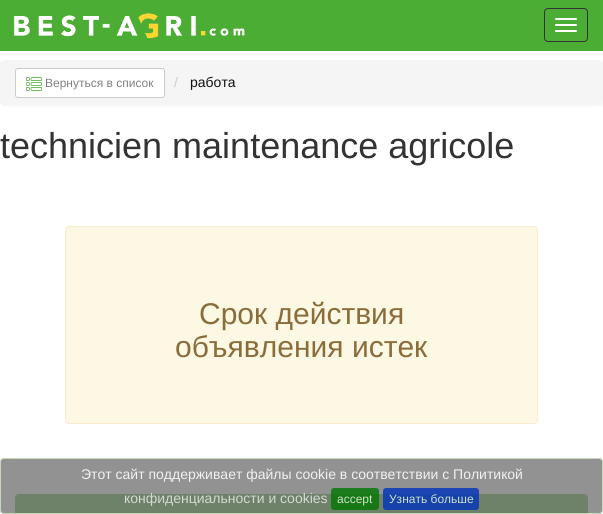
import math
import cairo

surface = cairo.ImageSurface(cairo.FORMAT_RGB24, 603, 514)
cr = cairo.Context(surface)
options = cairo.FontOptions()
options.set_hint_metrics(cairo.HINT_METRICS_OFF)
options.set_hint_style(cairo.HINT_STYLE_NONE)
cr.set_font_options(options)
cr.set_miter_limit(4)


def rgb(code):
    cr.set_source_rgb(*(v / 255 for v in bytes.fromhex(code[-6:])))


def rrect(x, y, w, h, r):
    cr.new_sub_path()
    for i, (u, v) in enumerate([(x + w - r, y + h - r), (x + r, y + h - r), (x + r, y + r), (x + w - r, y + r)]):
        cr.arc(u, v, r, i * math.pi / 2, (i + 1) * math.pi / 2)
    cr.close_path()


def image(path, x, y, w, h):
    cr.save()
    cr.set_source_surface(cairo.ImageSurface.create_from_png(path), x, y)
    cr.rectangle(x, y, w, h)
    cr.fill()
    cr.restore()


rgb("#ffffff")
cr.paint()
rgb("#4cad35")
cr.rectangle(0, 0, 603, 51)
cr.fill()
image("img/1.png", 13, 13, 232, 26)
rrect(544.5, 8.5, 43, 33, 3.5)
rgb("#333333")
cr.set_line_width(1)
cr.stroke()
rgb("#ffffff")
rrect(555, 18, 22, 2, 1)
cr.fill()
rrect(555, 24, 22, 2, 1)
cr.fill()
rrect(555, 30, 22, 2, 1)
cr.fill()
rgb("#f5f5f5")
rrect(0, 60, 603, 46, 4)
cr.fill()
rgb("#ffffff")
rrect(15.5, 68.5, 149, 29, 2.5)
cr.fill_preserve()
rgb("#cccccc")
cr.stroke()
image("img/2.png", 26, 77, 16, 14)
rgb("#fcf8e3")
rrect(65.5, 226.5, 472, 197, 3.5)
cr.fill_preserve()
rgb("#faebcc")
cr.stroke()
rrect(15.5, 494.5, 572, 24, 3.5)
rgb("#4cad35")
cr.stroke()
cr.new_path()
cr.move_to(19, 495)
cr.line_to(584, 495)
cr.curve_to(585.5, 495, 587, 496.5, 587, 498)
cr.line_to(587, 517)
cr.line_to(16, 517)
cr.line_to(16, 498)
cr.curve_to(16, 496.5, 17.5, 495, 19, 495)
cr.close_path()
cr.fill()
cr.set_source_rgba(0.467, 0.467, 0.467, 0.8)
rrect(0, 458, 603, 56, 4)
cr.fill()
rrect(0.5, 458.5, 602, 55, 3.5)
cr.set_source_rgba(0.839, 0.914, 0.776, 0.8)
cr.stroke()
cr.set_source_rgba(0, 0.467, 0, 0.8)
rrect(331, 488, 48, 22, 3)
cr.fill()
cr.set_source_rgba(0, 0.2, 0.733, 0.8)
rrect(383, 488, 96, 22, 3)
cr.fill()
cr.select_font_face("Liberation Sans")
cr.set_font_size(12)
rgb("#808080")
cr.move_to(45, 87)
cr.show_text("Вернуться в список")
cr.set_font_size(14)
rgb("#cccccc")
cr.move_to(174, 87)
cr.show_text("/")
rgb("#111111")
cr.move_to(190, 87)
cr.show_text("работа")
cr.set_font_size(36)
rgb("#333333")
cr.move_to(0, 158)
cr.show_text("technicien maintenance agricole")
cr.set_font_size(30)
rgb("#8a6d3b")
cr.move_to(199, 324)
cr.show_text("Срок действия")
cr.move_to(175, 357)
cr.show_text("объявления истек")
cr.set_font_size(14)
rgb("#f1f1f1")
cr.move_to(81, 479)
cr.show_text("Этот сайт поддерживает файлы cookie в соответствии с Политикой")
rgb("#d5d8d4")
cr.move_to(124, 503)
cr.show_text("конфиденциальности и cookies")
cr.set_font_size(12)
rgb("#cee1c9")
cr.move_to(337, 503)
cr.show_text("accept")
cr.move_to(389, 503)
cr.show_text("Узнать больше")
surface.write_to_png("page.png")
